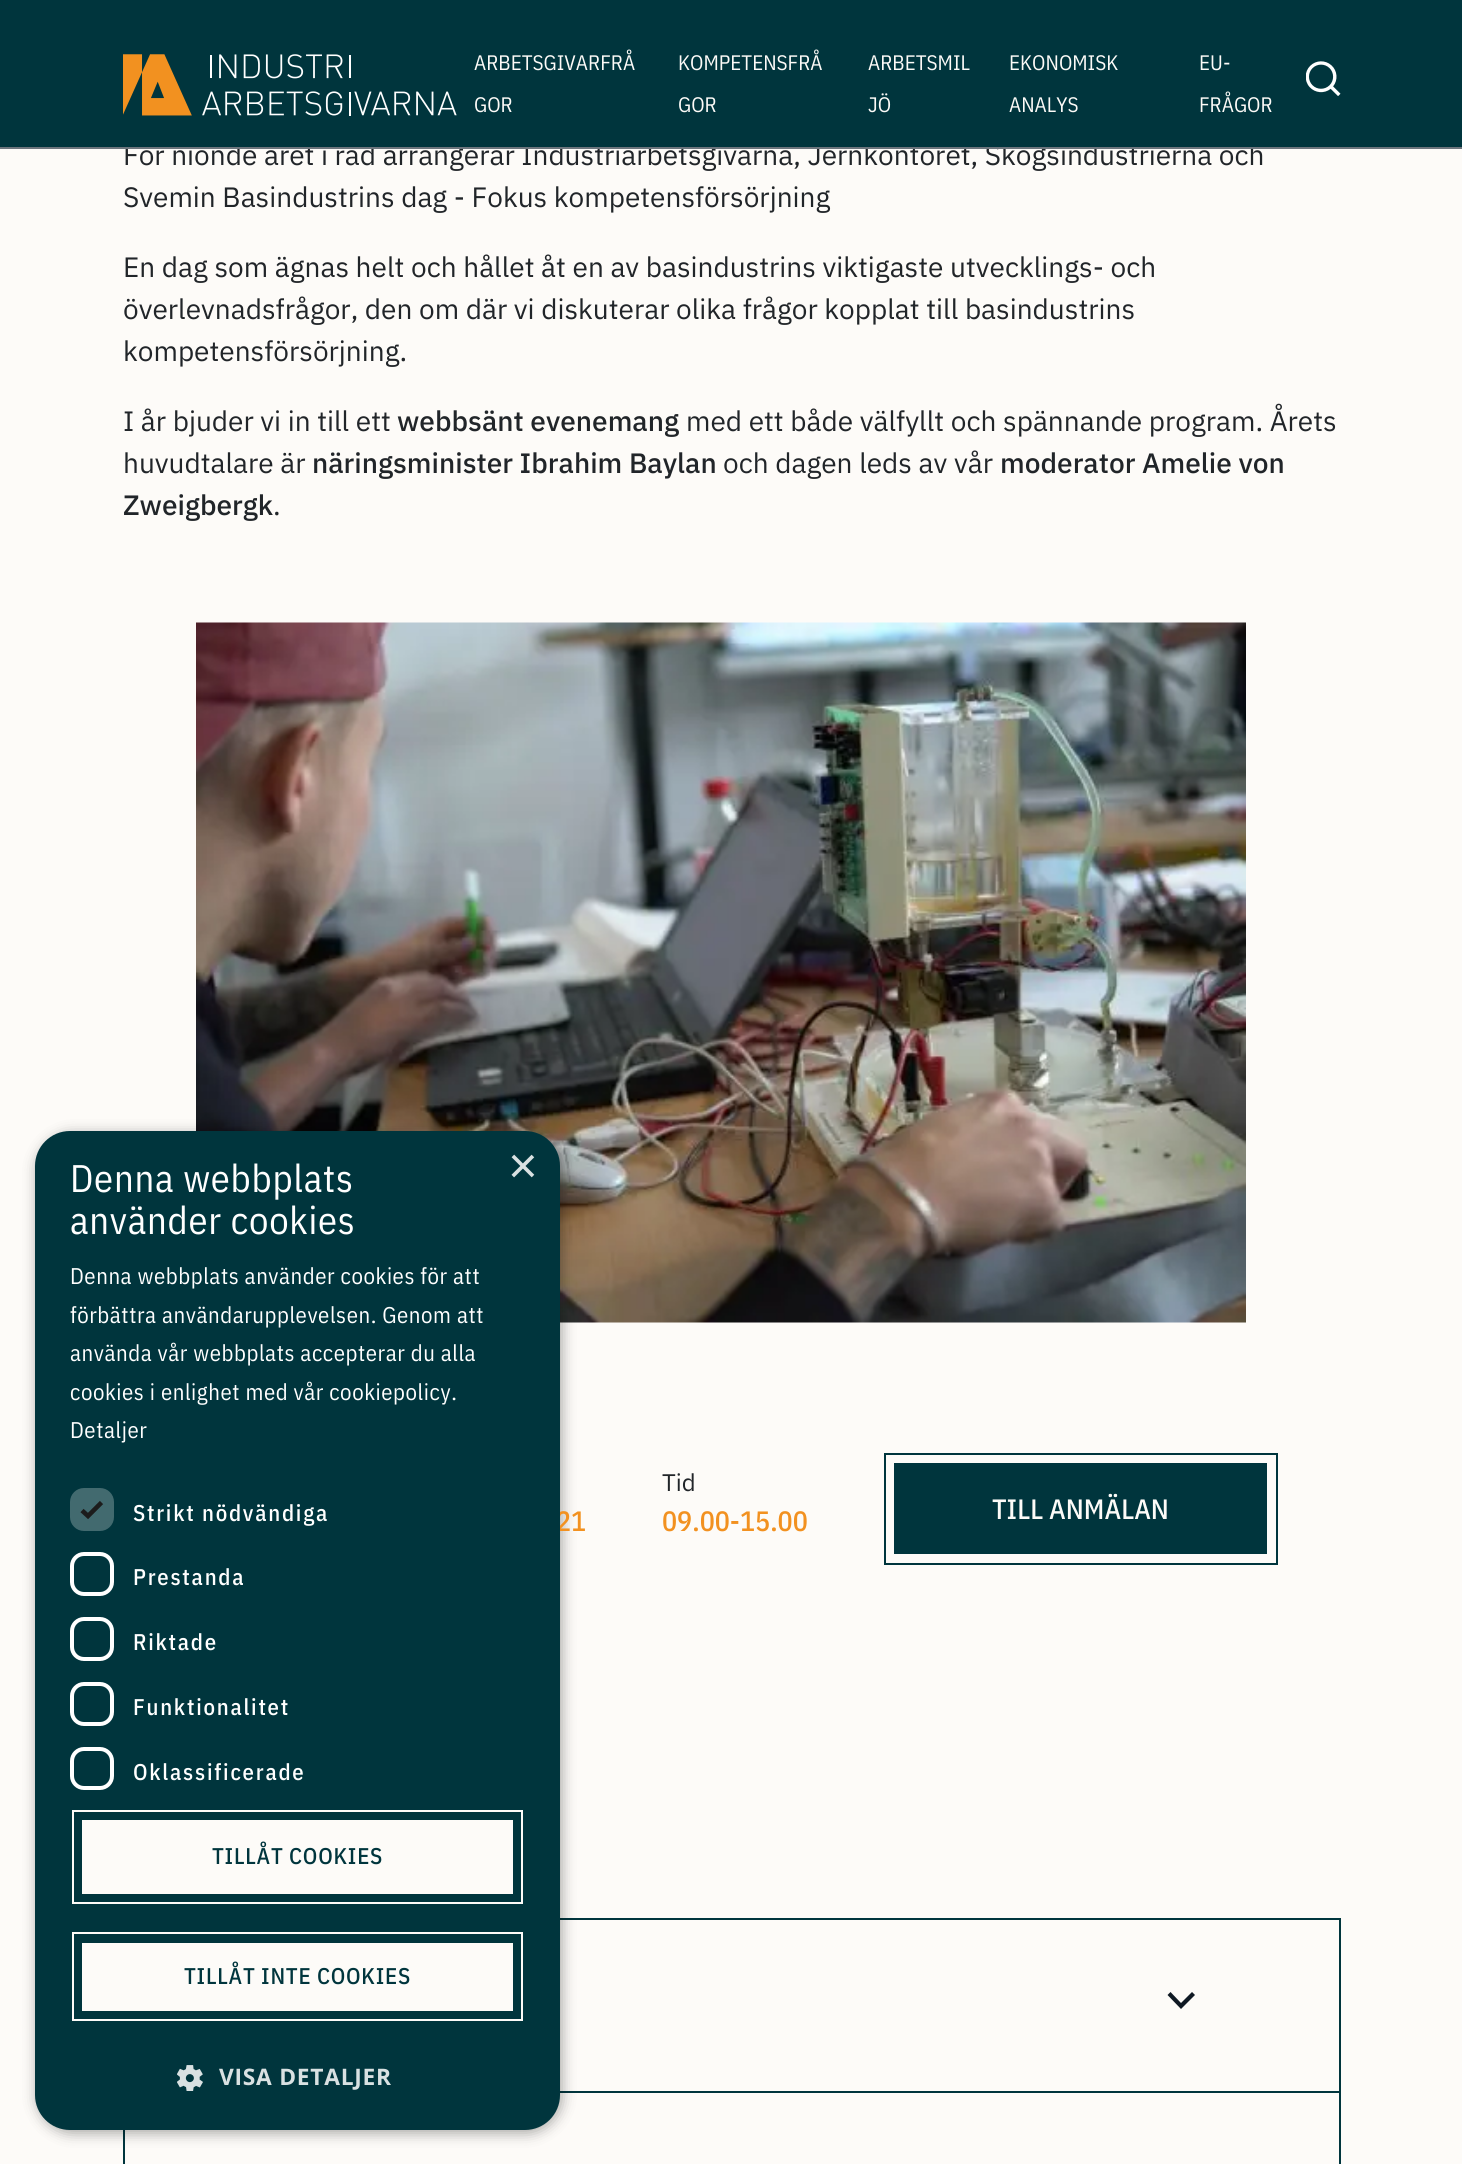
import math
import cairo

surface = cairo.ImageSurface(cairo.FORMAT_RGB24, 1462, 2164)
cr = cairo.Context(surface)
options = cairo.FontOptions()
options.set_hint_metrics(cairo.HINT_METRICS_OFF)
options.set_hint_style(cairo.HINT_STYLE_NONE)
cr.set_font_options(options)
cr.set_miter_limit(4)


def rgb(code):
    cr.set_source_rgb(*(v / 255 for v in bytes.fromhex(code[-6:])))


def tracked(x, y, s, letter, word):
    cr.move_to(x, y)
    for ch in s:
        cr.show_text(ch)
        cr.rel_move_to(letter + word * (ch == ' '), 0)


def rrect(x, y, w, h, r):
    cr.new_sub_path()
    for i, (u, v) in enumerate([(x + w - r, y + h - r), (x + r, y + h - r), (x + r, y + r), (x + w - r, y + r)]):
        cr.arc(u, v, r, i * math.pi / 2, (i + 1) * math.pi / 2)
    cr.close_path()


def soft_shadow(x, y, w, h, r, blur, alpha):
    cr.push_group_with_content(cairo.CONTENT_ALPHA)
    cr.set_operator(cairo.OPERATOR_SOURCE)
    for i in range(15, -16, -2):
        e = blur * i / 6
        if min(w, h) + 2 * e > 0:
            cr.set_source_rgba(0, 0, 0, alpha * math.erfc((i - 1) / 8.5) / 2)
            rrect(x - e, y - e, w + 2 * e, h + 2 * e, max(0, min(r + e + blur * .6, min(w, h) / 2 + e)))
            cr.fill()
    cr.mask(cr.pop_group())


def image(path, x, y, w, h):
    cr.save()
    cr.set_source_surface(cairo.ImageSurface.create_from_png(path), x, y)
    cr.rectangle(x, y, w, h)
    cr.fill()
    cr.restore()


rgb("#fdfbf8")
cr.paint()
image("img/3.png", 196, 622, 1050, 701)
rgb("#00353d")
cr.rectangle(894, 1463, 373, 91)
cr.fill()
cr.rectangle(885, 1454, 392, 110)
cr.stroke()
for x, y, w, h, color in [
    (560, 1918, 781, 2, "#00353d"),
    (560, 2091, 781, 2, "#00353d"),
    (123, 2130, 2, 34, "#00353d"),
]:
    rgb(color)
    cr.rectangle(x, y, w, h)
    cr.fill()
rgb("#000000")
soft_shadow(37, 1134, 525, 999, 35, 7, 0.35)
rgb("#00353d")
cr.rectangle(1339, 1918, 2, 173)
cr.fill()
rgb("#0f1923")
cr.new_path()
cr.move_to(1181, 2003)
cr.line_to(1192, 1992)
cr.line_to(1195, 1995)
cr.line_to(1181, 2009)
cr.line_to(1167.5, 1995)
cr.line_to(1170.5, 1992)
cr.close_path()
cr.fill()
rgb("#00353d")
cr.rectangle(1339, 2091, 2, 73)
cr.fill()
cr.select_font_face("IBM Plex Sans")
cr.set_font_size(28)
rgb("#212529")
cr.move_to(123, 165)
cr.show_text("För nionde året i rad arrangerar Industriarbetsgivarna, Jernkontoret, Skogsindustrierna och")
rgb("#00353d")
cr.rectangle(0, 0, 1462, 147)
cr.fill()
image("img/2.png", 1306, 61, 35, 35)
cr.select_font_face("IBM Plex Sans Condensed")
cr.set_font_size(21)
rgb("#fdfbf8")
for x, y, s in [
    (1199, 112, "FRÅGOR"),
    (1199, 70, "EU-"),
    (1009, 112, "ANALYS"),
    (1009, 70, "EKONOMISK"),
    (868, 112, "JÖ"),
    (868, 70, "ARBETSMIL"),
    (678, 112, "GOR"),
    (678, 70, "KOMPETENSFRÅ"),
    (474, 112, "GOR"),
    (474, 70, "ARBETSGIVARFRÅ"),
]:
    cr.move_to(x, y)
    cr.show_text(s)
image("img/1.png", 123, 54, 334, 62)
rgb("#6c757d")
cr.rectangle(0, 147, 1462, 2)
cr.fill()
cr.select_font_face("IBM Plex Sans")
cr.set_font_size(28)
rgb("#212529")
for x, y, s in [
    (123, 207, "Svemin Basindustrins dag - Fokus kompetensförsörjning"),
    (123, 277, "En dag som ägnas helt och hållet åt en av basindustrins viktigaste utvecklings- och"),
    (123, 319, "överlevnadsfrågor, den om där vi diskuterar olika frågor kopplat till basindustrins"),
    (123, 361, "kompetensförsörjning."),
    (123, 431, "I år bjuder vi in till ett"),
]:
    cr.move_to(x, y)
    cr.show_text(s)
cr.select_font_face("IBM Plex Sans Medium")
cr.move_to(397, 431)
cr.show_text("webbsänt evenemang")
cr.select_font_face("IBM Plex Sans")
cr.move_to(686, 431)
cr.show_text("med ett både välfyllt och spännande program. Årets")
cr.move_to(123, 473)
cr.show_text("huvudtalare är")
cr.select_font_face("IBM Plex Sans Medium")
cr.move_to(312, 473)
cr.show_text("näringsminister Ibrahim Baylan")
cr.select_font_face("IBM Plex Sans")
cr.move_to(723, 473)
cr.show_text("och dagen leds av vår")
cr.select_font_face("IBM Plex Sans Medium")
cr.move_to(1000, 473)
cr.show_text("moderator Amelie von")
cr.move_to(123, 515)
cr.show_text("Zweigbergk")
cr.select_font_face("IBM Plex Sans")
cr.move_to(273, 515)
cr.show_text(".")
cr.set_font_size(24)
cr.move_to(662, 1491)
cr.show_text("Tid")
cr.select_font_face("IBM Plex Sans Condensed Medium")
cr.set_font_size(28)
rgb("#f29120")
cr.move_to(662, 1531)
cr.show_text("09.00-15.00")
rgb("#fdfbf8")
cr.move_to(992, 1519)
cr.show_text("TILL ANMÄLAN")
rgb("#f29120")
cr.move_to(556, 1531)
cr.show_text("21")
rgb("#00353d")
rrect(35, 1131, 525, 999, 35)
cr.fill()
cr.select_font_face("IBM Plex Sans Condensed")
cr.set_font_size(38.5)
rgb("#ffffff")
tracked(70, 1192, "Denna webbplats", 0.75, 0)
tracked(70, 1234, "använder cookies", 0.75, 0)
cr.select_font_face("Liberation Sans")
cr.set_font_size(51)
rgb("#d9e1e2")
cr.move_to(508, 1183)
cr.show_text("×")
cr.select_font_face("IBM Plex Sans Condensed")
cr.set_font_size(22.75)
rgb("#ffffff")
for x, y, s in [
    (70, 1284, "Denna webbplats använder cookies för att"),
    (70, 1323, "förbättra användarupplevelsen. Genom att"),
    (70, 1361, "använda vår webbplats accepterar du alla"),
    (70, 1400, "cookies i enlighet med vår cookiepolicy."),
    (70, 1438, "Detaljer"),
]:
    tracked(x, y, s, 0.55, 0)
rgb("#426a6f")
rrect(70, 1488, 44, 43, 14)
cr.fill()
cr.new_path()
cr.move_to(82, 1510.5)
cr.line_to(88, 1516)
cr.line_to(101.5, 1502.5)
rgb("#1c1c1c")
cr.set_line_width(4.6)
cr.stroke()
cr.select_font_face("IBM Plex Sans Condensed Medium")
rgb("#ffffff")
tracked(133, 1521, "Strikt nödvändiga", 1.75, 0)
rrect(72, 1554, 40, 40, 12)
cr.set_line_width(4)
cr.stroke()
tracked(133, 1585, "Prestanda", 1.75, 0)
rrect(72, 1619, 40, 40, 12)
cr.stroke()
tracked(133, 1650, "Riktade", 1.75, 0)
rrect(72, 1684, 40, 40, 12)
cr.stroke()
tracked(133, 1715, "Funktionalitet", 1.75, 0)
rrect(72, 1749, 40, 39, 12)
cr.stroke()
tracked(133, 1780, "Oklassificerade", 1.75, 0)
rgb("#fdfbf8")
cr.rectangle(82, 1820, 431, 74)
cr.fill()
cr.rectangle(73, 1811, 449, 92)
cr.set_line_width(2)
cr.stroke()
rgb("#00353d")
tracked(212, 1864, "TILLÅT COOKIES", 0.75, 0)
rgb("#fdfbf8")
cr.rectangle(82, 1943, 431, 68)
cr.fill()
cr.rectangle(73, 1933, 449, 87)
cr.stroke()
rgb("#00353d")
tracked(184, 1984, "TILLÅT INTE COOKIES", 0.75, 0)
image("img/4.png", 177, 2065, 26, 26)
cr.select_font_face("Open Sans", cairo.FONT_SLANT_NORMAL, cairo.FONT_WEIGHT_BOLD)
rgb("#d9e1e2")
tracked(219, 2085, "VISA DETALJER", 0.75, 0)
surface.write_to_png("page.png")
